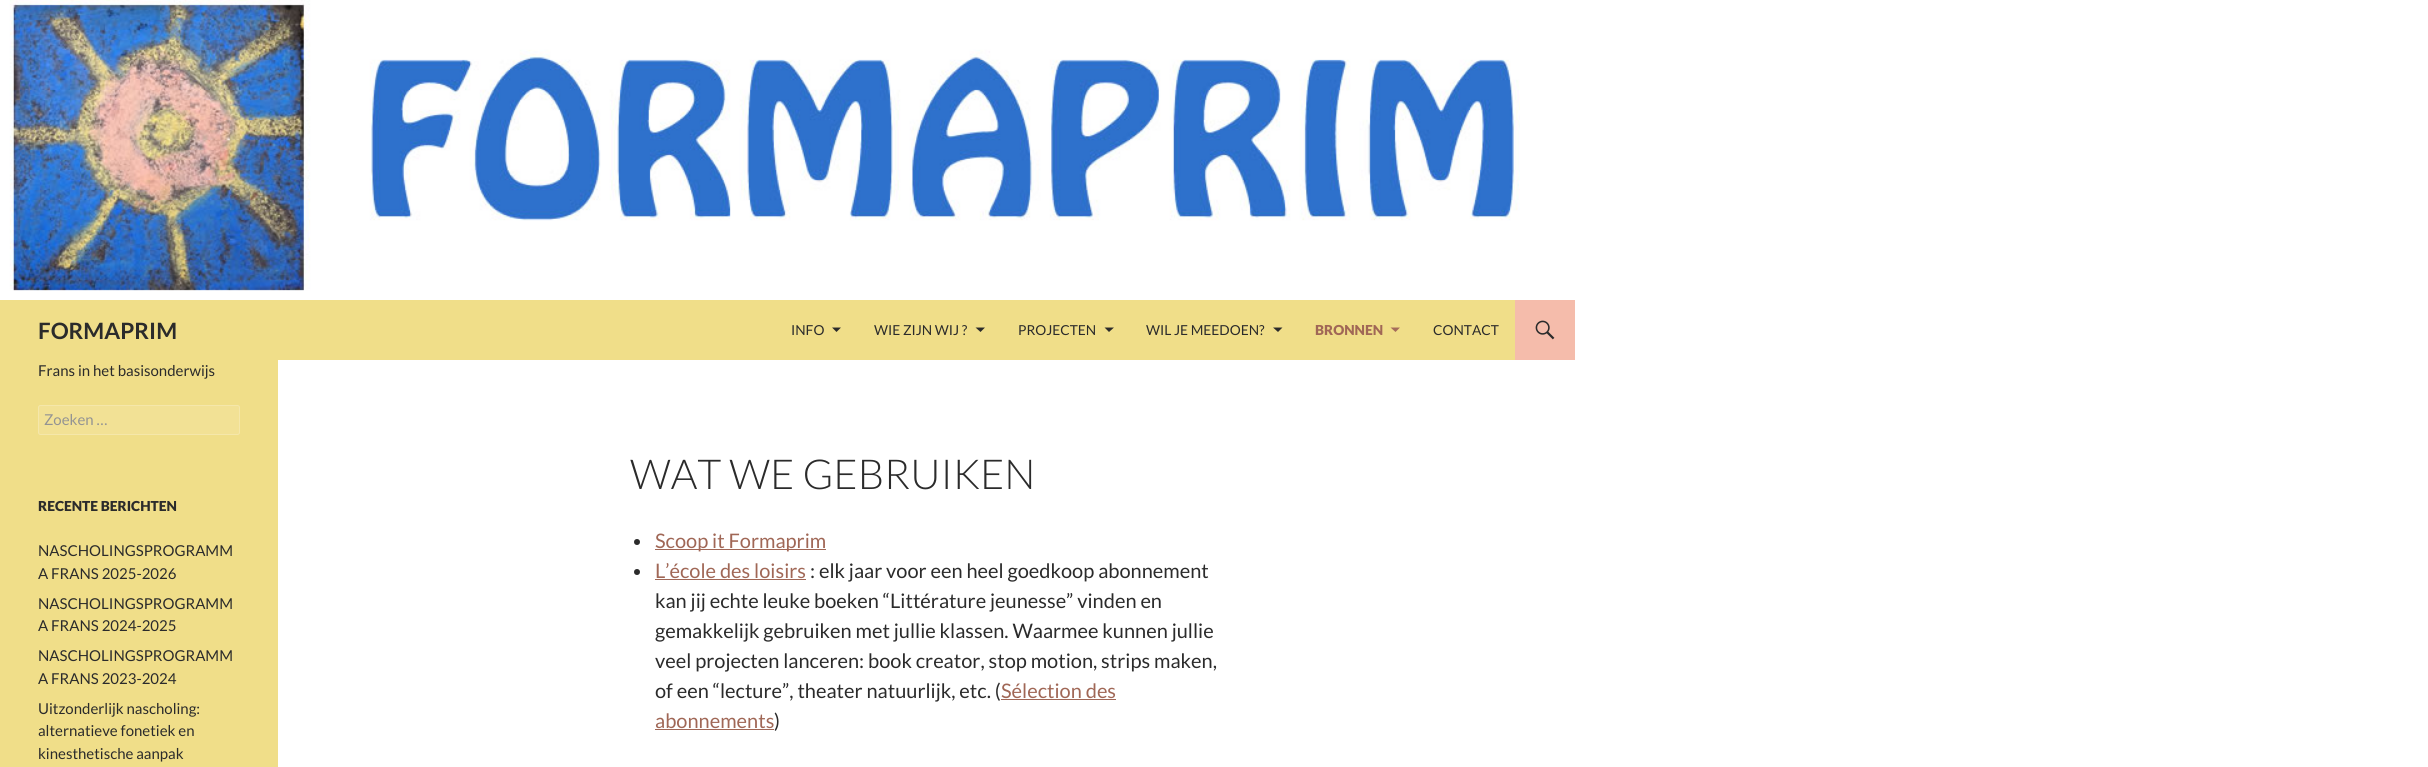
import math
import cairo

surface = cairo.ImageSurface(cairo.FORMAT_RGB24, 2428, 767)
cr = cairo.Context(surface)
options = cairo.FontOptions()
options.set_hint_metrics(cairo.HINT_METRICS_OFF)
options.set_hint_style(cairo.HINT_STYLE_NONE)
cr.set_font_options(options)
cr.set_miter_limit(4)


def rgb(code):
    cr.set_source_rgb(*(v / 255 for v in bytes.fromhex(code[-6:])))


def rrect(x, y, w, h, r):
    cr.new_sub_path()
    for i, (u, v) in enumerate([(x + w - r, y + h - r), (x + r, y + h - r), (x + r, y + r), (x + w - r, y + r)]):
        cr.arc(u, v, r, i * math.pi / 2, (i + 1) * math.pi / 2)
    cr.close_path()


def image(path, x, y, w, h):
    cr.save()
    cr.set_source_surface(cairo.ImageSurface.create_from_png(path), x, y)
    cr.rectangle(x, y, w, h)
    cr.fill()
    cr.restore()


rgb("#ffffff")
cr.paint()
image("img/1.png", 0, 0, 1520, 300)
rgb("#f0de89")
cr.rectangle(0, 300, 1515, 60)
cr.fill()
rgb("#2b2b2b")
cr.new_path()
cr.move_to(832, 327.5)
cr.line_to(836.5, 332)
cr.line_to(841, 327.5)
cr.close_path()
cr.fill()
cr.new_path()
cr.move_to(975.5, 327.5)
cr.line_to(980.5, 332)
cr.line_to(985, 327.5)
cr.close_path()
cr.fill()
cr.new_path()
cr.move_to(1104.5, 327.5)
cr.line_to(1109, 332)
cr.line_to(1114, 327.5)
cr.close_path()
cr.fill()
cr.new_path()
cr.move_to(1273, 327.5)
cr.line_to(1278, 332)
cr.line_to(1282.5, 327.5)
cr.close_path()
cr.fill()
rgb("#a56c5b")
cr.new_path()
cr.move_to(1390.5, 327.5)
cr.line_to(1395.5, 332)
cr.line_to(1400, 327.5)
cr.close_path()
cr.fill()
rgb("#f5bcab")
cr.rectangle(1515, 300, 60, 60)
cr.fill()
image("img/2.png", 1535, 320, 20, 20)
rgb("#f0de89")
cr.rectangle(0, 360, 278, 407)
cr.fill()
rgb("#f2e195")
rrect(38, 405, 202, 30, 2.5)
cr.fill()
rrect(38.5, 405.5, 201, 29, 2)
cr.set_source_rgba(1, 1, 1, 0.2)
cr.set_line_width(1)
cr.stroke()
rgb("#2b2b2b")
cr.arc(637, 542, 3, 0, 2 * math.pi)
cr.fill()
rgb("#a06756")
cr.rectangle(655, 549, 171, 1)
cr.fill()
rgb("#2b2b2b")
cr.arc(637, 572, 3, 0, 2 * math.pi)
cr.fill()
for x, y, w, h, color in [
    (655, 579, 151, 1, "#a06756"),
    (1001, 699, 115, 1, "#a06756"),
    (655, 729, 119, 1, "#a06756"),
]:
    rgb(color)
    cr.rectangle(x, y, w, h)
    cr.fill()
cr.select_font_face("Lato", cairo.FONT_SLANT_NORMAL, cairo.FONT_WEIGHT_BOLD)
cr.set_font_size(22.5)
rgb("#2b2b2b")
cr.move_to(38, 339)
cr.show_text("FORMAPRIM")
cr.select_font_face("Lato")
cr.set_font_size(13.75)
for x, y, s in [
    (791, 335, "INFO"),
    (874, 335, "WIE ZIJN WIJ ?"),
    (1018, 335, "PROJECTEN"),
    (1146, 335, "WIL JE MEEDOEN?"),
]:
    cr.move_to(x, y)
    cr.show_text(s)
cr.select_font_face("Lato Black")
rgb("#a06756")
cr.move_to(1315, 335)
cr.show_text("BRONNEN")
cr.select_font_face("Lato")
rgb("#2b2b2b")
cr.move_to(1433, 335)
cr.show_text("CONTACT")
cr.set_font_size(15)
cr.move_to(38, 376)
cr.show_text("Frans in het basisonderwijs")
rgb("#939393")
cr.move_to(44, 425)
cr.show_text("Zoeken …")
cr.select_font_face("Lato Black")
cr.set_font_size(13.75)
rgb("#2b2b2b")
cr.move_to(38, 511)
cr.show_text("RECENTE BERICHTEN")
cr.select_font_face("Lato")
cr.set_font_size(15)
for x, y, s in [
    (38, 556, "NASCHOLINGSPROGRAMM"),
    (38, 579, "A FRANS 2025-2026"),
    (38, 609, "NASCHOLINGSPROGRAMM"),
    (38, 631, "A FRANS 2024-2025"),
    (38, 661, "NASCHOLINGSPROGRAMM"),
    (38, 684, "A FRANS 2023-2024"),
    (38, 714, "Uitzonderlijk nascholing:"),
    (38, 736, "alternatieve fonetiek en"),
    (38, 759, "kinesthetische aanpak"),
]:
    cr.move_to(x, y)
    cr.show_text(s)
cr.select_font_face("Lato Light")
cr.set_font_size(41.25)
cr.move_to(630, 489)
cr.show_text("WAT WE GEBRUIKEN")
cr.select_font_face("Lato")
cr.set_font_size(20)
rgb("#a06756")
cr.move_to(655, 548)
cr.show_text("Scoop it Formaprim")
cr.move_to(655, 578)
cr.show_text("L’école des loisirs")
rgb("#2b2b2b")
for x, y, s in [
    (810, 578, ": elk jaar voor een heel goedkoop abonnement"),
    (655, 608, "kan jij echte leuke boeken “Littérature jeunesse” vinden en"),
    (655, 638, "gemakkelijk gebruiken met jullie klassen. Waarmee kunnen jullie"),
    (655, 668, "veel projecten lanceren: book creator, stop motion, strips maken,"),
    (655, 698, "of een “lecture”, theater natuurlijk, etc. ("),
]:
    cr.move_to(x, y)
    cr.show_text(s)
rgb("#a06756")
cr.move_to(1001, 698)
cr.show_text("Sélection des")
cr.move_to(655, 728)
cr.show_text("abonnements")
rgb("#2b2b2b")
cr.move_to(774, 728)
cr.show_text(")")
surface.write_to_png("page.png")
